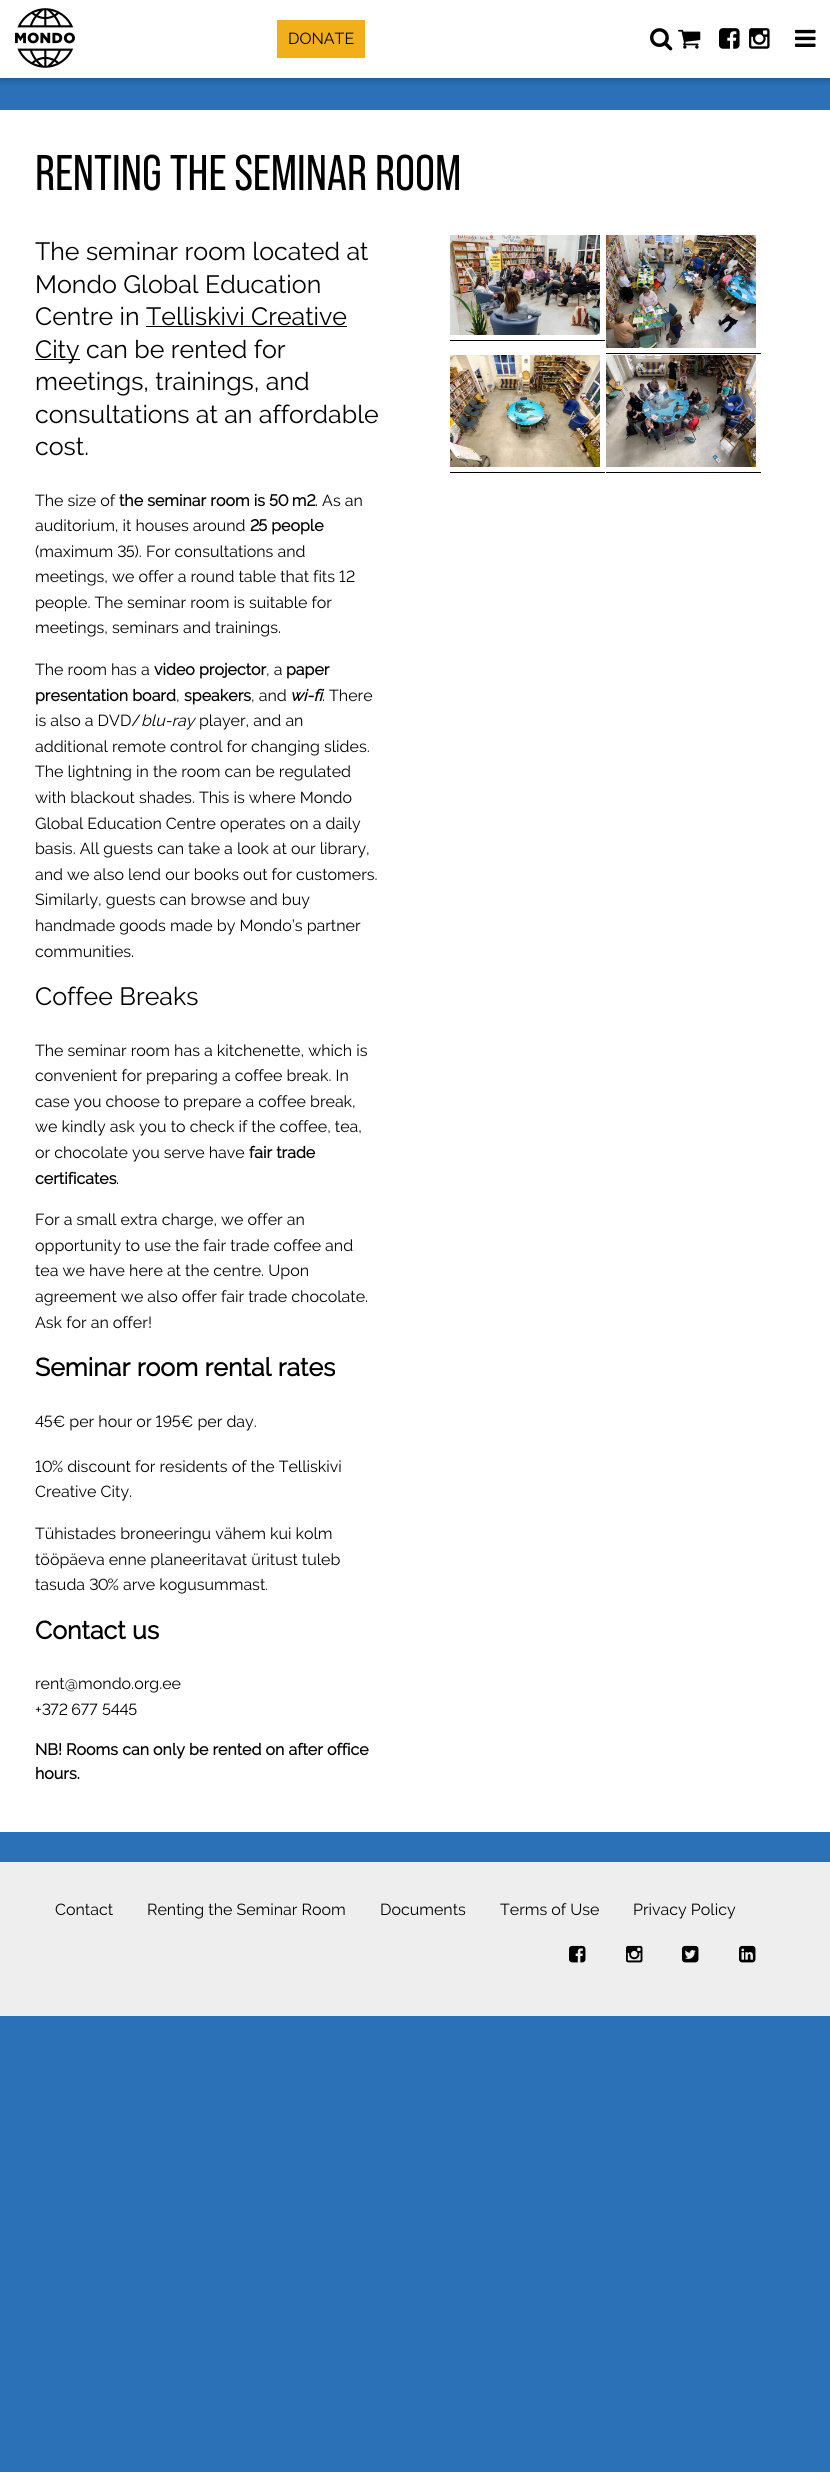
import math
import cairo

surface = cairo.ImageSurface(cairo.FORMAT_RGB24, 830, 2472)
cr = cairo.Context(surface)
options = cairo.FontOptions()
options.set_hint_metrics(cairo.HINT_METRICS_OFF)
options.set_hint_style(cairo.HINT_STYLE_NONE)
cr.set_font_options(options)
cr.set_miter_limit(4)


def rgb(code):
    cr.set_source_rgb(*(v / 255 for v in bytes.fromhex(code[-6:])))


def rrect(x, y, w, h, r):
    cr.new_sub_path()
    for i, (u, v) in enumerate([(x + w - r, y + h - r), (x + r, y + h - r), (x + r, y + r), (x + w - r, y + r)]):
        cr.arc(u, v, r, i * math.pi / 2, (i + 1) * math.pi / 2)
    cr.close_path()


def soft_shadow(x, y, w, h, r, blur, alpha):
    cr.push_group_with_content(cairo.CONTENT_ALPHA)
    cr.set_operator(cairo.OPERATOR_SOURCE)
    for i in range(15, -16, -2):
        e = blur * i / 6
        if min(w, h) + 2 * e > 0:
            cr.set_source_rgba(0, 0, 0, alpha * math.erfc((i - 1) / 8.5) / 2)
            rrect(x - e, y - e, w + 2 * e, h + 2 * e, max(0, min(r + e + blur * .6, min(w, h) / 2 + e)))
            cr.fill()
    cr.mask(cr.pop_group())


def image(path, x, y, w, h):
    cr.save()
    cr.set_source_surface(cairo.ImageSurface.create_from_png(path), x, y)
    cr.rectangle(x, y, w, h)
    cr.fill()
    cr.restore()


rgb("#2b71b7")
cr.paint()
rgb("#000000")
soft_shadow(0, 3, 830, 78, 0, 2.5, 0.2)
rgb("#ffffff")
cr.rectangle(0, 0, 830, 78)
cr.fill()
image("img/1.png", 15, 8, 60, 60)
rgb("#f2af1c")
cr.rectangle(277, 20, 88, 38)
cr.fill()
image("img/2.png", 650, 28, 23, 23)
image("img/3.png", 678, 29, 23, 20)
image("img/4.png", 719, 28, 21, 21)
image("img/5.png", 749, 28, 21, 21)
image("img/6.png", 795, 29, 21, 18)
for x, y, w, h, color in [
    (0, 110, 830, 1722, "#ffffff"),
    (146, 326, 201, 1, "#000000"),
    (35, 359, 45, 1, "#000000"),
    (450, 340, 155, 1, "#000000"),
]:
    rgb(color)
    cr.rectangle(x, y, w, h)
    cr.fill()
image("img/7.png", 450, 235, 150, 100)
cr.rectangle(606, 353, 155, 1)
cr.fill()
image("img/8.png", 606, 235, 150, 113)
cr.rectangle(450, 472, 155, 1)
cr.fill()
image("img/9.png", 450, 355, 150, 112)
cr.rectangle(606, 472, 155, 1)
cr.fill()
image("img/10.png", 606, 355, 150, 112)
rgb("#eeeeee")
cr.rectangle(0, 1862, 830, 154)
cr.fill()
image("img/11.png", 569, 1945, 17, 18)
image("img/12.png", 626, 1945, 17, 18)
image("img/13.png", 682, 1945, 17, 18)
image("img/14.png", 739, 1945, 17, 18)
cr.select_font_face("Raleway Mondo")
cr.set_font_size(16)
rgb("#000000")
cr.move_to(288, 44)
cr.show_text("DONATE")
cr.select_font_face("Bebas Neue")
cr.set_font_size(50)
cr.move_to(35, 190)
cr.show_text("RENTING THE SEMINAR ROOM")
cr.select_font_face("Raleway Mondo")
cr.set_font_size(25)
for x, y, s in [
    (35, 260, "The seminar room located at"),
    (35, 293, "Mondo Global Education"),
    (35, 325, "Centre in Telliskivi Creative"),
    (35, 358, "City can be rented for"),
    (35, 390, "meetings, trainings, and"),
    (35, 423, "consultations at an affordable"),
    (35, 455, "cost."),
]:
    cr.move_to(x, y)
    cr.show_text(s)
cr.set_font_size(16)
cr.move_to(35, 506)
cr.show_text("The size of")
cr.select_font_face("Raleway Mondo", cairo.FONT_SLANT_NORMAL, cairo.FONT_WEIGHT_BOLD)
cr.move_to(119, 506)
cr.show_text("the seminar room is 50 m2")
cr.select_font_face("Raleway Mondo")
cr.move_to(315, 506)
cr.show_text(". As an")
cr.move_to(35, 531)
cr.show_text("auditorium, it houses around")
cr.select_font_face("Raleway Mondo", cairo.FONT_SLANT_NORMAL, cairo.FONT_WEIGHT_BOLD)
cr.move_to(250, 531)
cr.show_text("25 people")
cr.select_font_face("Raleway Mondo")
for x, y, s in [
    (35, 557, "(maximum 35). For consultations and"),
    (35, 582, "meetings, we offer a round table that fits 12"),
    (35, 608, "people. The seminar room is suitable for"),
    (35, 633, "meetings, seminars and trainings."),
    (35, 675, "The room has a"),
]:
    cr.move_to(x, y)
    cr.show_text(s)
cr.select_font_face("Raleway Mondo", cairo.FONT_SLANT_NORMAL, cairo.FONT_WEIGHT_BOLD)
cr.move_to(154, 675)
cr.show_text("video projector")
cr.select_font_face("Raleway Mondo")
cr.move_to(266, 675)
cr.show_text(", a")
cr.select_font_face("Raleway Mondo", cairo.FONT_SLANT_NORMAL, cairo.FONT_WEIGHT_BOLD)
cr.move_to(286, 675)
cr.show_text("paper")
cr.move_to(35, 701)
cr.show_text("presentation board")
cr.select_font_face("Raleway Mondo")
cr.move_to(176, 701)
cr.show_text(",")
cr.select_font_face("Raleway Mondo", cairo.FONT_SLANT_NORMAL, cairo.FONT_WEIGHT_BOLD)
cr.move_to(184, 701)
cr.show_text("speakers")
cr.select_font_face("Raleway Mondo")
cr.move_to(251, 701)
cr.show_text(", and")
cr.select_font_face("Raleway Mondo", cairo.FONT_SLANT_ITALIC, cairo.FONT_WEIGHT_BOLD)
cr.move_to(290, 701)
cr.show_text("wi-fi")
cr.select_font_face("Raleway Mondo")
cr.move_to(322, 701)
cr.show_text(". There")
cr.move_to(35, 726)
cr.show_text("is also a DVD/")
cr.select_font_face("Raleway Mondo", cairo.FONT_SLANT_ITALIC)
cr.move_to(141, 726)
cr.show_text("blu-ray")
cr.select_font_face("Raleway Mondo")
for x, y, s in [
    (199, 726, "player, and an"),
    (35, 752, "additional remote control for changing slides."),
    (35, 777, "The lightning in the room can be regulated"),
    (35, 803, "with blackout shades. This is where Mondo"),
    (35, 829, "Global Education Centre operates on a daily"),
    (35, 854, "basis. All guests can take a look at our library,"),
    (35, 880, "and we also lend our books out for customers."),
    (35, 905, "Similarly, guests can browse and buy"),
    (35, 931, "handmade goods made by Mondo’s partner"),
    (35, 957, "communities."),
]:
    cr.move_to(x, y)
    cr.show_text(s)
cr.set_font_size(25)
cr.move_to(35, 1005)
cr.show_text("Coffee Breaks")
cr.set_font_size(16)
for x, y, s in [
    (35, 1056, "The seminar room has a kitchenette, which is"),
    (35, 1081, "convenient for preparing a coffee break. In"),
    (35, 1107, "case you choose to prepare a coffee break,"),
    (35, 1132, "we kindly ask you to check if the coffee, tea,"),
    (35, 1158, "or chocolate you serve have"),
]:
    cr.move_to(x, y)
    cr.show_text(s)
cr.select_font_face("Raleway Mondo", cairo.FONT_SLANT_NORMAL, cairo.FONT_WEIGHT_BOLD)
cr.move_to(249, 1158)
cr.show_text("fair trade")
cr.move_to(35, 1184)
cr.show_text("certificates")
cr.select_font_face("Raleway Mondo")
for x, y, s in [
    (116, 1184, "."),
    (35, 1225, "For a small extra charge, we offer an"),
    (35, 1251, "opportunity to use the fair trade coffee and"),
    (35, 1276, "tea we have here at the centre. Upon"),
    (35, 1302, "agreement we also offer fair trade chocolate."),
    (35, 1328, "Ask for an offer!"),
]:
    cr.move_to(x, y)
    cr.show_text(s)
cr.select_font_face("Raleway Mondo", cairo.FONT_SLANT_NORMAL, cairo.FONT_WEIGHT_BOLD)
cr.set_font_size(25)
cr.move_to(35, 1376)
cr.show_text("Seminar room rental rates")
cr.select_font_face("Raleway Mondo")
cr.set_font_size(16)
for x, y, s in [
    (35, 1427, "45€ per hour or 195€ per day."),
    (35, 1472, "10% discount for residents of the Telliskivi"),
    (35, 1497, "Creative City."),
    (35, 1539, "Tühistades broneeringu vähem kui kolm"),
    (35, 1565, "tööpäeva enne planeeritavat üritust tuleb"),
    (35, 1590, "tasuda 30% arve kogusummast."),
]:
    cr.move_to(x, y)
    cr.show_text(s)
cr.select_font_face("Raleway Mondo", cairo.FONT_SLANT_NORMAL, cairo.FONT_WEIGHT_BOLD)
cr.set_font_size(25)
cr.move_to(35, 1639)
cr.show_text("Contact us")
cr.select_font_face("Raleway Mondo")
cr.set_font_size(16)
cr.move_to(35, 1689)
cr.show_text("rent@mondo.org.ee")
cr.move_to(35, 1715)
cr.show_text("+372 677 5445")
cr.select_font_face("Raleway Mondo", cairo.FONT_SLANT_NORMAL, cairo.FONT_WEIGHT_BOLD)
cr.move_to(35, 1755)
cr.show_text("NB! Rooms can only be rented on after office")
cr.move_to(35, 1779)
cr.show_text("hours.")
cr.select_font_face("Raleway Mondo")
for x, y, s in [
    (55, 1915, "Contact"),
    (147, 1915, "Renting the Seminar Room"),
    (380, 1915, "Documents"),
    (500, 1915, "Terms of Use"),
    (633, 1915, "Privacy Policy"),
]:
    cr.move_to(x, y)
    cr.show_text(s)
surface.write_to_png("page.png")
